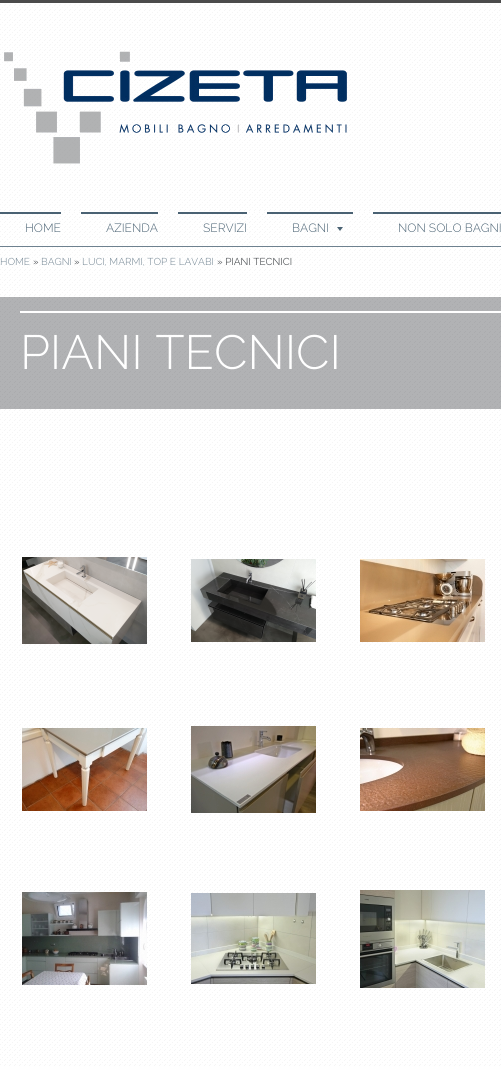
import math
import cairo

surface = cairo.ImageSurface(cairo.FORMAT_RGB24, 501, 1066)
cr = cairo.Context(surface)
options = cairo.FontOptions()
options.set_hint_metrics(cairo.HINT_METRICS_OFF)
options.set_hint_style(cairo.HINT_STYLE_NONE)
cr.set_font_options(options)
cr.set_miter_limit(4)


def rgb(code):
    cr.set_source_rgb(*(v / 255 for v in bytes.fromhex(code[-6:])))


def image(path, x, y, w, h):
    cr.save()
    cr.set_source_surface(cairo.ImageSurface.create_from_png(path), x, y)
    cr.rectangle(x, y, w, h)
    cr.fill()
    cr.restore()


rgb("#ffffff")
cr.paint()
image("img/1.png", 0, 4, 501, 1062)
rgb("#4c4c4c")
cr.rectangle(0, 0, 501, 3)
cr.fill()
image("img/2.png", 4, 51, 343, 113)
rgb("#ffffff")
cr.rectangle(0, 212, 501, 34)
cr.fill()
image("img/3.png", 0, 212, 501, 33)
for x, y, w, h, color in [
    (0, 212, 61, 2, "#4a6273"),
    (81, 212, 77, 2, "#4a6273"),
    (178, 212, 69, 2, "#4a6273"),
    (267, 212, 86, 2, "#4a6273"),
]:
    rgb(color)
    cr.rectangle(x, y, w, h)
    cr.fill()
cr.new_path()
cr.move_to(337, 227)
cr.line_to(343, 227)
cr.line_to(340, 231)
cr.close_path()
cr.fill()
for x, y, w, h, color in [
    (373, 212, 128, 2, "#4a6273"),
    (0, 246, 501, 1, "#6e818f"),
    (0, 297, 501, 112, "#b1b2b4"),
]:
    rgb(color)
    cr.rectangle(x, y, w, h)
    cr.fill()
image("img/4.png", 0, 297, 501, 111)
rgb("#ffffff")
cr.rectangle(20, 311, 481, 2)
cr.fill()
image("img/5.png", 22, 557, 125, 87)
image("img/6.png", 191, 559, 125, 83)
image("img/7.png", 360, 559, 125, 83)
image("img/8.png", 22, 728, 125, 83)
image("img/9.png", 191, 726, 125, 87)
image("img/10.png", 360, 728, 125, 83)
image("img/11.png", 22, 892, 125, 93)
image("img/12.png", 191, 893, 125, 91)
image("img/13.png", 360, 890, 125, 98)
cr.select_font_face("Raleway Light")
cr.set_font_size(12)
rgb("#4a6273")
for x, y, s in [
    (25, 232, "HOME"),
    (106, 232, "AZIENDA"),
    (203, 232, "SERVIZI"),
    (292, 232, "BAGNI"),
    (398, 232, "NON SOLO BAGNI"),
]:
    cr.move_to(x, y)
    cr.show_text(s)
cr.set_font_size(10)
rgb("#6e818f")
cr.move_to(0, 265)
cr.show_text("HOME")
rgb("#202529")
cr.move_to(33, 265)
cr.show_text("»")
rgb("#6e818f")
cr.move_to(41, 265)
cr.show_text("BAGNI")
rgb("#202529")
cr.move_to(74, 265)
cr.show_text("»")
rgb("#6e818f")
cr.move_to(82, 265)
cr.show_text("LUCI, MARMI, TOP E LAVABI")
rgb("#202529")
cr.move_to(217, 265)
cr.show_text("» PIANI TECNICI")
cr.set_font_size(48)
rgb("#ffffff")
cr.move_to(20, 369)
cr.show_text("PIANI TECNICI")
surface.write_to_png("page.png")
